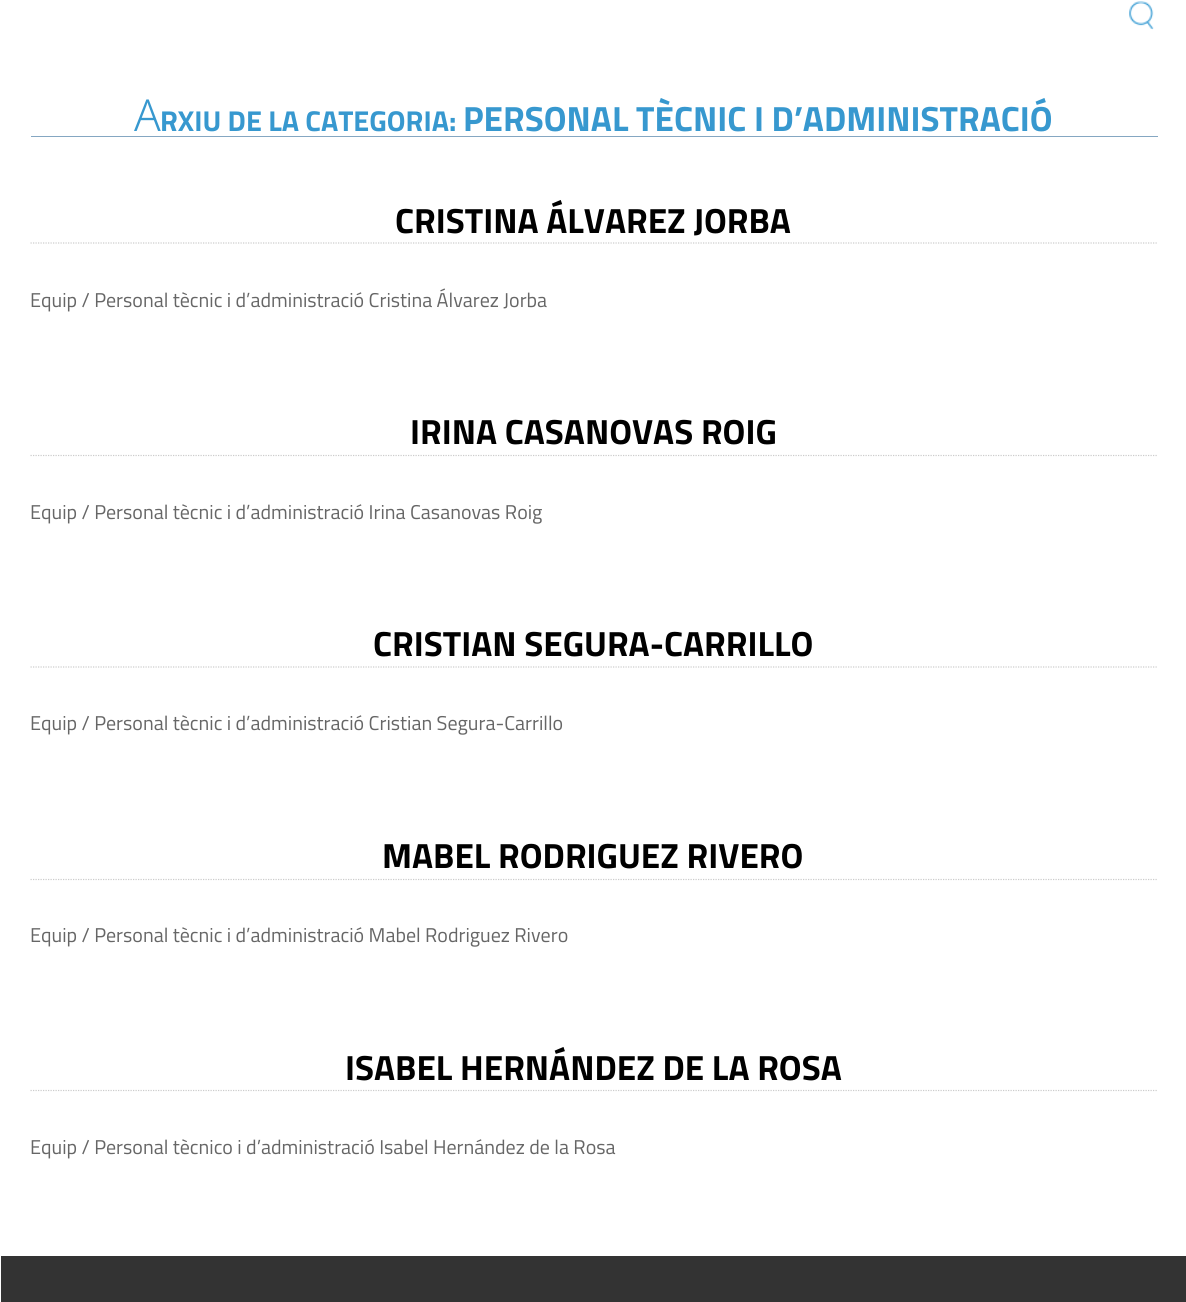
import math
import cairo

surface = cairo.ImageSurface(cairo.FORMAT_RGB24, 1186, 1302)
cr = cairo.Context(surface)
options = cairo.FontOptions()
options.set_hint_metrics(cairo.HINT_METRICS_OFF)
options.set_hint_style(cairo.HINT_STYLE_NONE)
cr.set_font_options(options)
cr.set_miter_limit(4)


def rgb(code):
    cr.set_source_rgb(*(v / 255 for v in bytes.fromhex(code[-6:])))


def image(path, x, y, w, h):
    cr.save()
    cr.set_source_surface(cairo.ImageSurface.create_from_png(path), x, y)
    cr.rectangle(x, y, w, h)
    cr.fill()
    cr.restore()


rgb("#ffffff")
cr.paint()
image("img/1.png", 1129, 1, 25, 29)
rgb("#85a7c2")
cr.rectangle(31, 136, 1127, 1)
cr.fill()
cr.new_path()
cr.move_to(30.5, 243)
cr.line_to(1157, 243)
rgb("#cccccc")
cr.set_line_width(1.2)
cr.set_dash([1.25, 1.25])
cr.stroke()
cr.new_path()
cr.move_to(30.5, 455.5)
cr.line_to(1157, 455.5)
cr.stroke()
cr.new_path()
cr.move_to(30.5, 667)
cr.line_to(1157, 667)
cr.stroke()
cr.new_path()
cr.move_to(30.5, 879.5)
cr.line_to(1157, 879.5)
cr.stroke()
cr.new_path()
cr.move_to(30.5, 1090.5)
cr.line_to(1157, 1090.5)
cr.stroke()
rgb("#333333")
cr.rectangle(1, 1256, 1185, 46)
cr.fill()
cr.select_font_face("Noto Sans Light")
cr.set_font_size(44)
rgb("#3798cf")
cr.move_to(134, 131)
cr.show_text("A")
cr.select_font_face("Titillium Web", cairo.FONT_SLANT_NORMAL, cairo.FONT_WEIGHT_BOLD)
cr.set_font_size(28.75)
cr.move_to(160, 131)
cr.show_text("RXIU DE LA CATEGORIA:")
cr.set_font_size(35)
cr.move_to(463, 131)
cr.show_text("PERSONAL TÈCNIC I D’ADMINISTRACIÓ")
rgb("#000000")
cr.move_to(395, 233)
cr.show_text("CRISTINA ÁLVAREZ JORBA")
cr.select_font_face("Titillium Web")
cr.set_font_size(20)
rgb("#666666")
cr.move_to(30, 307)
cr.show_text("Equip / Personal tècnic i d’administració Cristina Álvarez Jorba")
cr.select_font_face("Titillium Web", cairo.FONT_SLANT_NORMAL, cairo.FONT_WEIGHT_BOLD)
cr.set_font_size(35)
rgb("#000000")
cr.move_to(410, 444)
cr.show_text("IRINA CASANOVAS ROIG")
cr.select_font_face("Titillium Web")
cr.set_font_size(20)
rgb("#666666")
cr.move_to(30, 519)
cr.show_text("Equip / Personal tècnic i d’administració Irina Casanovas Roig")
cr.select_font_face("Titillium Web", cairo.FONT_SLANT_NORMAL, cairo.FONT_WEIGHT_BOLD)
cr.set_font_size(35)
rgb("#000000")
cr.move_to(373, 656)
cr.show_text("CRISTIAN SEGURA-CARRILLO")
cr.select_font_face("Titillium Web")
cr.set_font_size(20)
rgb("#666666")
cr.move_to(30, 730)
cr.show_text("Equip / Personal tècnic i d’administració Cristian Segura-Carrillo")
cr.select_font_face("Titillium Web", cairo.FONT_SLANT_NORMAL, cairo.FONT_WEIGHT_BOLD)
cr.set_font_size(35)
rgb("#000000")
cr.move_to(382, 868)
cr.show_text("MABEL RODRIGUEZ RIVERO")
cr.select_font_face("Titillium Web")
cr.set_font_size(20)
rgb("#666666")
cr.move_to(30, 942)
cr.show_text("Equip / Personal tècnic i d’administració Mabel Rodriguez Rivero")
cr.select_font_face("Titillium Web", cairo.FONT_SLANT_NORMAL, cairo.FONT_WEIGHT_BOLD)
cr.set_font_size(35)
rgb("#000000")
cr.move_to(345, 1080)
cr.show_text("ISABEL HERNÁNDEZ DE LA ROSA")
cr.select_font_face("Titillium Web")
cr.set_font_size(20)
rgb("#666666")
cr.move_to(30, 1154)
cr.show_text("Equip / Personal tècnico i d’administració Isabel Hernández de la Rosa")
surface.write_to_png("page.png")
